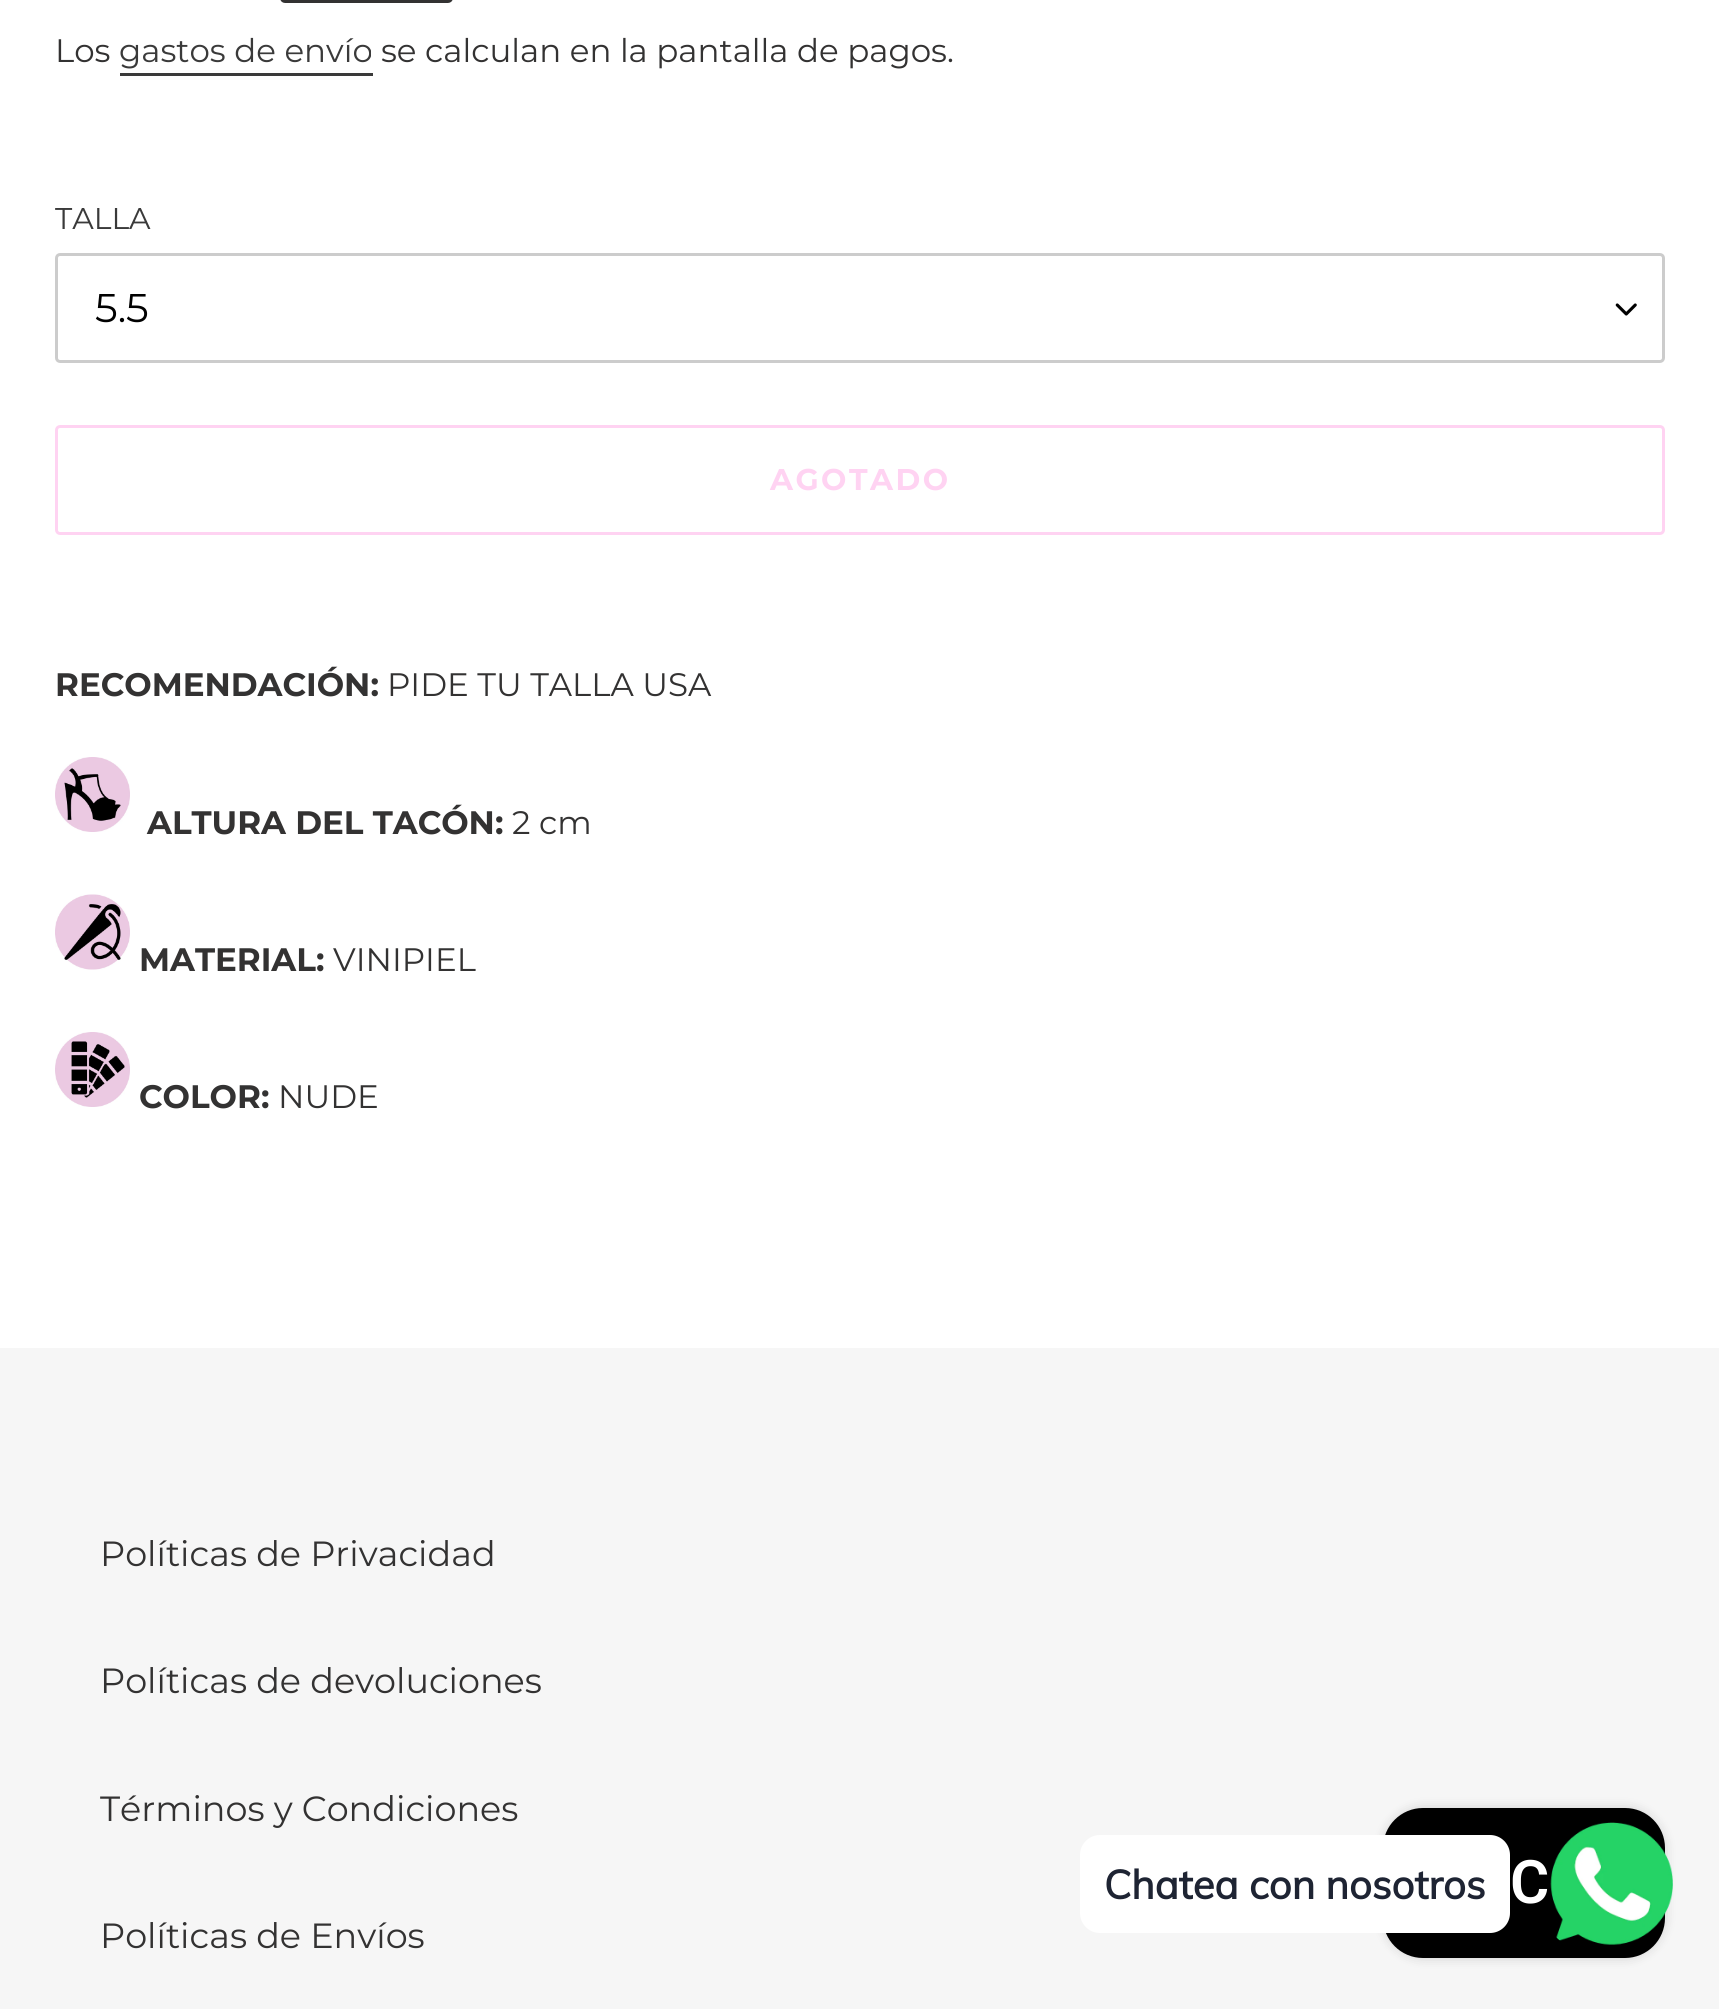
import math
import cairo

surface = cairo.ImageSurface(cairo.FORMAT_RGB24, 1719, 2009)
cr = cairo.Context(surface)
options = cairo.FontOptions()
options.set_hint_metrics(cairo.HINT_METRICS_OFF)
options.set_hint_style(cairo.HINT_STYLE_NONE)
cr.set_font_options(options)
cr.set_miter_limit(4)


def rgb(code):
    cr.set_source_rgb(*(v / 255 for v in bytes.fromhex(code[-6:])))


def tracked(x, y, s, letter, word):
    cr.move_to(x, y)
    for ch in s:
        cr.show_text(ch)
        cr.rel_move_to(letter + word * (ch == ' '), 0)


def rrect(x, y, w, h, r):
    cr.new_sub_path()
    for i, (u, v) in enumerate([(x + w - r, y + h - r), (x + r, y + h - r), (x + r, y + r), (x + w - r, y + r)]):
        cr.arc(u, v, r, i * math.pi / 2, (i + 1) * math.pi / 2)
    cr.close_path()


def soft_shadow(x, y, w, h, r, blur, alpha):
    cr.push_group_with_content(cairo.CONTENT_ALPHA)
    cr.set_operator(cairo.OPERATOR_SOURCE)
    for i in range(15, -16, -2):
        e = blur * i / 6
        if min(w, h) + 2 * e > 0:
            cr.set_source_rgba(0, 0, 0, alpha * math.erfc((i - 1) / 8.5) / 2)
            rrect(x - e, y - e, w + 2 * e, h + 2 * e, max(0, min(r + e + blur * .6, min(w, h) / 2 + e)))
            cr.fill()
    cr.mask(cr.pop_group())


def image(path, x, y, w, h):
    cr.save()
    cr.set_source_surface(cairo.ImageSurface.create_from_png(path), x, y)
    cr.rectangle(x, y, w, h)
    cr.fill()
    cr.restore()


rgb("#ffffff")
cr.paint()
rrect(281.5, -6.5, 170, 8, 3.5)
rgb("#333232")
cr.set_line_width(3)
cr.stroke()
rgb("#3a3a3a")
cr.rectangle(120, 73, 253, 3)
cr.fill()
image("img/1.png", 1615, 303, 22, 13)
rrect(56.5, 254.5, 1607, 107, 3.5)
rgb("#cccccc")
cr.stroke()
rrect(56.5, 426.5, 1607, 107, 3.5)
rgb("#ffd3f2")
cr.stroke()
image("img/2.png", 55, 757, 75, 75)
image("img/3.png", 55, 894, 75, 76)
image("img/4.png", 55, 1032, 75, 75)
rgb("#f6f6f6")
cr.rectangle(0, 1348, 1719, 661)
cr.fill()
rgb("#000000")
soft_shadow(1383, 1808, 282, 150, 40, 6, 0.15)
rgb("#000000")
rrect(1383, 1808, 282, 150, 40)
cr.fill()
image("img/5.png", 1550, 1822, 123, 123)
rgb("#ffffff")
rrect(1080, 1835, 430, 98, 20)
cr.fill()
cr.select_font_face("Montserrat")
cr.set_font_size(32.5)
rgb("#333232")
cr.move_to(55, 62)
cr.show_text("Los")
rgb("#3a3a3a")
cr.move_to(119, 62)
cr.show_text("gastos de envío")
rgb("#333232")
cr.move_to(381, 62)
cr.show_text("se calculan en la pantalla de pagos.")
cr.set_font_size(30)
rgb("#3a3a3a")
cr.move_to(55, 229)
cr.show_text("TALLA")
cr.set_font_size(40)
rgb("#000000")
cr.move_to(95, 322)
cr.show_text("5.5")
cr.select_font_face("Montserrat", cairo.FONT_SLANT_NORMAL, cairo.FONT_WEIGHT_BOLD)
cr.set_font_size(30)
rgb("#ffd3f2")
tracked(770, 490, "AGOTADO", 2.5, 0)
cr.set_font_size(32.5)
rgb("#333232")
cr.move_to(55, 696)
cr.show_text("RECOMENDACIÓN:")
cr.select_font_face("Montserrat")
cr.move_to(387, 696)
cr.show_text("PIDE TU TALLA USA")
cr.select_font_face("Montserrat", cairo.FONT_SLANT_NORMAL, cairo.FONT_WEIGHT_BOLD)
cr.move_to(147, 834)
cr.show_text("ALTURA DEL TACÓN:")
cr.select_font_face("Montserrat")
cr.move_to(512, 834)
cr.show_text("2 cm")
cr.select_font_face("Montserrat", cairo.FONT_SLANT_NORMAL, cairo.FONT_WEIGHT_BOLD)
cr.move_to(139, 971)
cr.show_text("MATERIAL:")
cr.select_font_face("Montserrat")
cr.move_to(333, 971)
cr.show_text("VINIPIEL")
cr.select_font_face("Montserrat", cairo.FONT_SLANT_NORMAL, cairo.FONT_WEIGHT_BOLD)
cr.move_to(139, 1108)
cr.show_text("COLOR:")
cr.select_font_face("Montserrat")
cr.move_to(278, 1108)
cr.show_text("NUDE")
cr.set_font_size(35)
for x, y, s in [
    (100, 1566, "Políticas de Privacidad"),
    (100, 1693, "Políticas de devoluciones"),
    (100, 1821, "Términos y Condiciones"),
    (100, 1948, "Políticas de Envíos"),
]:
    cr.move_to(x, y)
    cr.show_text(s)
cr.select_font_face("Muli", cairo.FONT_SLANT_NORMAL, cairo.FONT_WEIGHT_BOLD)
cr.set_font_size(40)
rgb("#1e2433")
cr.move_to(1104, 1899)
cr.show_text("Chatea con nosotros")
cr.select_font_face("Roboto SemiBold")
cr.set_font_size(60)
rgb("#ffffff")
cr.move_to(1510, 1903)
cr.show_text("C")
surface.write_to_png("page.png")
